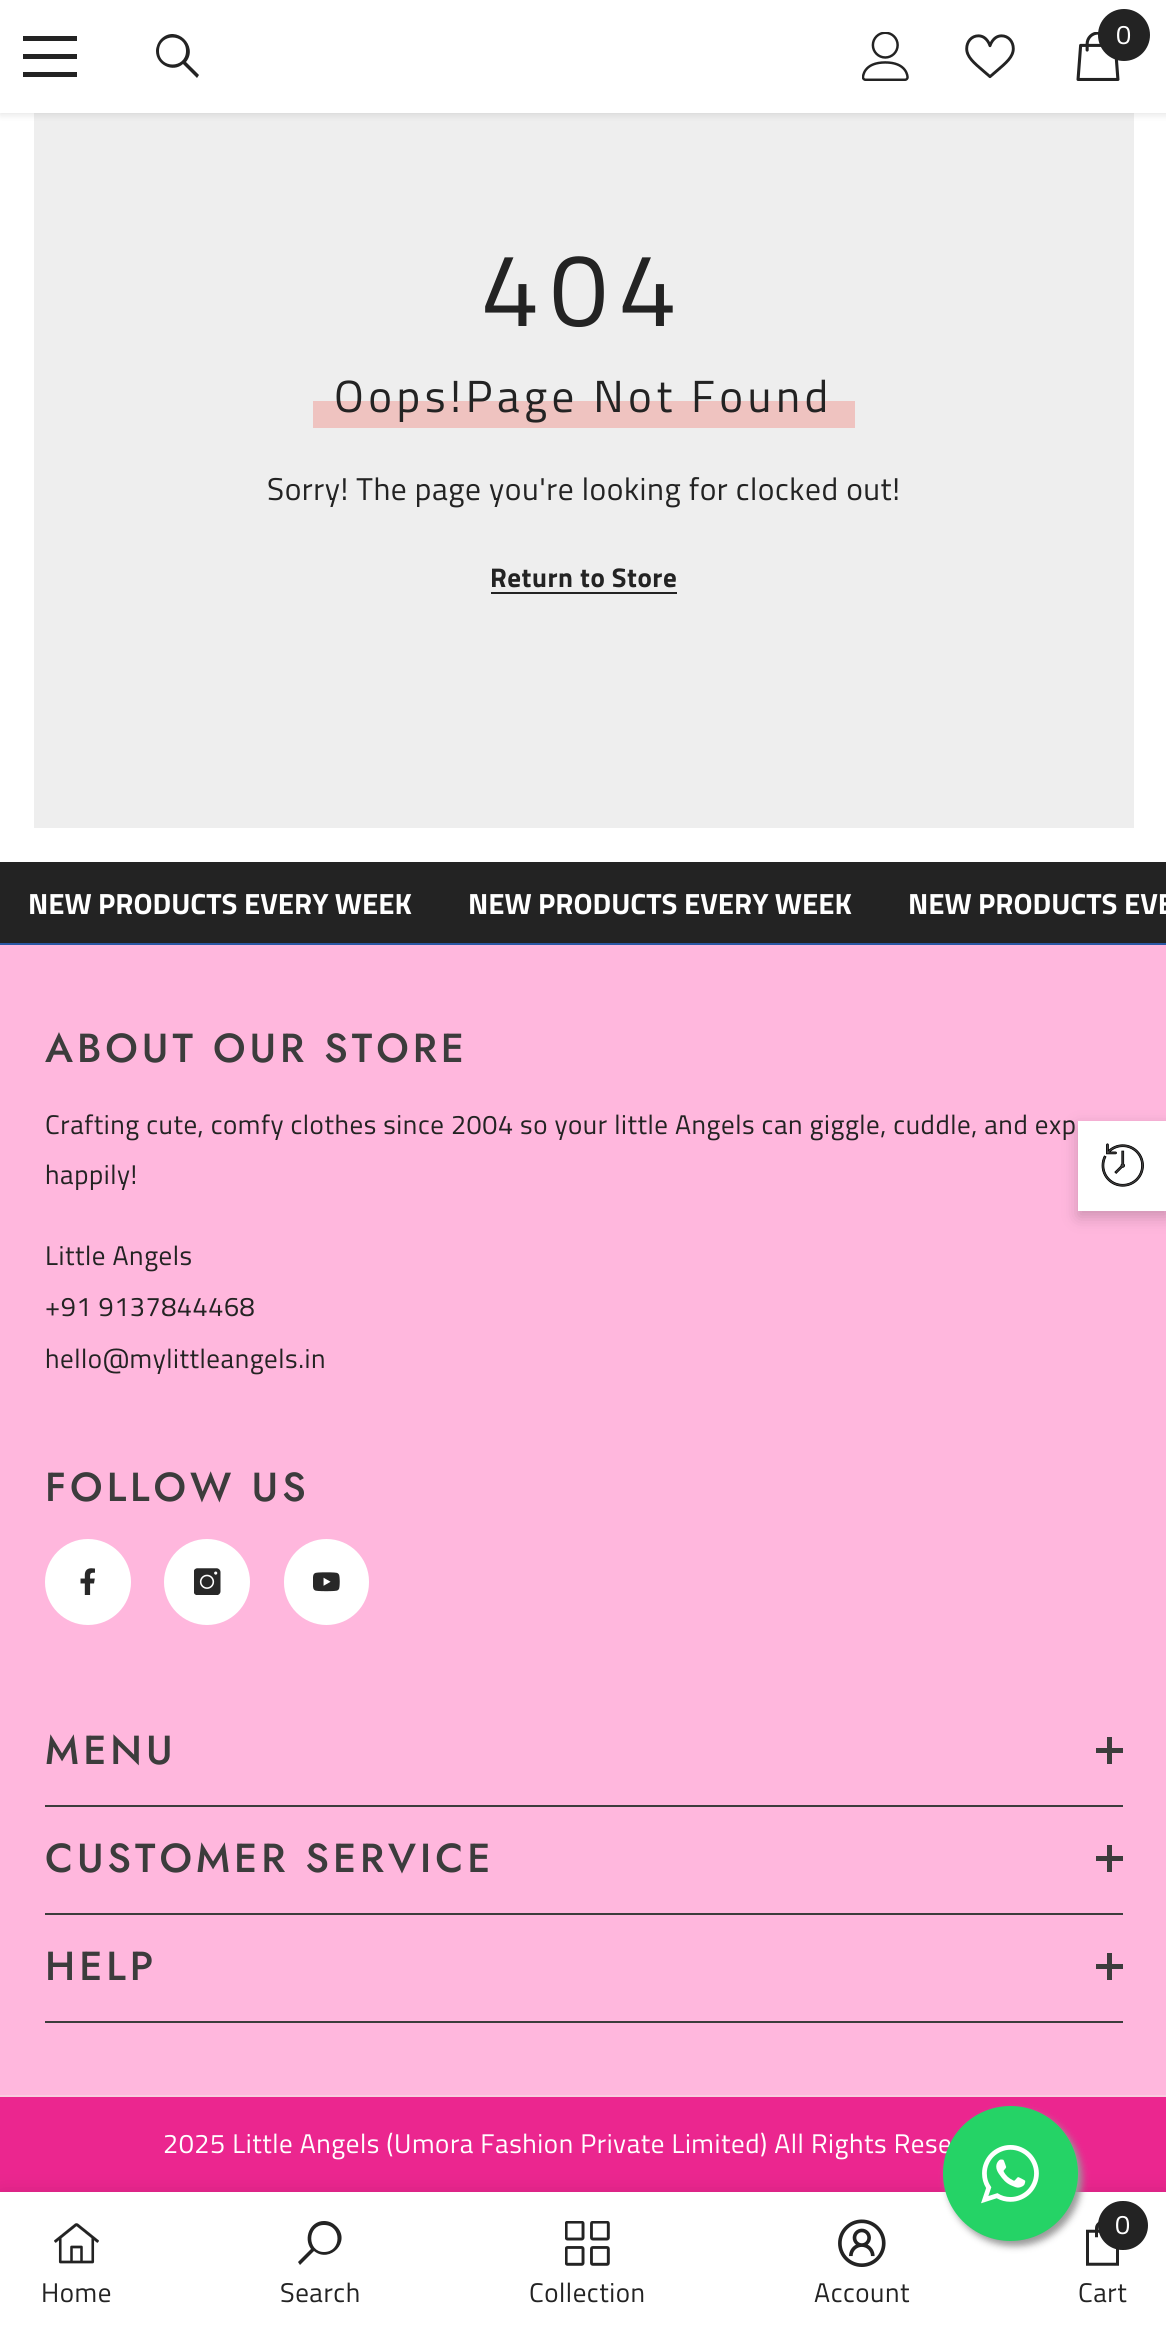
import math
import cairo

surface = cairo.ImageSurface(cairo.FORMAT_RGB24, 1166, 2329)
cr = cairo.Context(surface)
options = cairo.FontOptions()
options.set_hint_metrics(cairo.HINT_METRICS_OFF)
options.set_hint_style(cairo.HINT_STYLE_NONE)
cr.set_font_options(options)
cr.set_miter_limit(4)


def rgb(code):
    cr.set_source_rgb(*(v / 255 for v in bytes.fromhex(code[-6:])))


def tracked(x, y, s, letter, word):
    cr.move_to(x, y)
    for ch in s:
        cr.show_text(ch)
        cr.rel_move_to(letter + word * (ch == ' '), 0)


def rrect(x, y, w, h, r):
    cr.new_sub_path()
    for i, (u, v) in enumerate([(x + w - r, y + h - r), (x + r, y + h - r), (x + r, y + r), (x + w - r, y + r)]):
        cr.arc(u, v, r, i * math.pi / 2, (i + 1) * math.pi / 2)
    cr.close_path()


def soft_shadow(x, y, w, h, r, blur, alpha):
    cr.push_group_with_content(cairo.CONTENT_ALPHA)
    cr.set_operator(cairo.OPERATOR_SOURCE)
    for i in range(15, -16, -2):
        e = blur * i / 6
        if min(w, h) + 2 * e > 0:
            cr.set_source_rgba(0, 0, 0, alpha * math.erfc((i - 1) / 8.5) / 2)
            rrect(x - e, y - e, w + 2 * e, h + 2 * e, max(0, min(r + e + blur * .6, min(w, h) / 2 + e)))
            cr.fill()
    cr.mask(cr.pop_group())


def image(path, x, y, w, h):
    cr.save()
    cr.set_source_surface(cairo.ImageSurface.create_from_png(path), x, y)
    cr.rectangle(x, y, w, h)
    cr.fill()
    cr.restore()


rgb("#ffffff")
cr.paint()
rgb("#eeeeee")
cr.rectangle(34, 113, 1100, 715)
cr.fill()
rgb("#000000")
soft_shadow(0, 2, 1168, 113, 0, 3.5, 0.1)
for x, y, w, h, color in [
    (0, 0, 1166, 113, "#ffffff"),
    (23, 54, 54, 5, "#232323"),
    (23, 36, 54, 5, "#232323"),
    (23, 72, 54, 5, "#232323"),
]:
    rgb(color)
    cr.rectangle(x, y, w, h)
    cr.fill()
cr.new_path()
cr.move_to(156, 51)
cr.curve_to(156, 65, 173, 73, 183, 64)
cr.line_to(197, 78)
cr.line_to(199, 75)
cr.line_to(186, 62)
cr.curve_to(199, 46, 176, 24, 161, 39)
cr.curve_to(158, 42, 156, 47, 156, 51)
cr.close_path()
cr.move_to(159, 51)
cr.curve_to(159, 33, 186, 33, 186, 51)
cr.curve_to(186, 69, 159, 69, 159, 51)
cr.close_path()
cr.fill()
image("img/1.png", 862, 32, 47, 49)
image("img/2.png", 965, 34, 50, 45)
image("img/3.png", 1076, 32, 44, 49)
cr.arc(1124, 35, 26, 0, 2 * math.pi)
cr.fill()
for x, y, w, h, color in [
    (313, 401, 542, 27, "#efc3c0"),
    (491, 592, 186, 2, "#232323"),
    (0, 862, 1166, 81, "#232323"),
    (0, 945, 1166, 1150, "#ffb7dd"),
    (0, 943, 1166, 2, "#2a57a4"),
]:
    rgb(color)
    cr.rectangle(x, y, w, h)
    cr.fill()
rgb("#ffffff")
cr.arc(88, 1582, 42, 0, 2 * math.pi)
cr.fill_preserve()
cr.stroke()
image("img/4.png", 80, 1568, 15, 27)
cr.arc(207, 1582, 42, 0, 2 * math.pi)
cr.fill_preserve()
cr.stroke()
image("img/5.png", 194, 1568, 27, 27)
rrect(285, 1540, 83, 84, 41.5)
cr.fill_preserve()
cr.stroke()
image("img/6.png", 313, 1572, 27, 20)
for x, y, w, h, color in [
    (45, 1805, 1078, 2, "#3c3c3c"),
    (1107, 1737, 5, 27, "#3c3c3c"),
    (1096, 1748, 27, 5, "#3c3c3c"),
    (45, 1913, 1078, 2, "#3c3c3c"),
    (1107, 1845, 5, 27, "#3c3c3c"),
    (1096, 1856, 27, 5, "#3c3c3c"),
    (45, 2021, 1078, 2, "#3c3c3c"),
    (1107, 1953, 5, 27, "#3c3c3c"),
    (1096, 1964, 27, 5, "#3c3c3c"),
    (0, 2097, 1166, 95, "#eb268f"),
    (0, 2095, 1166, 2, "#f9cddf"),
]:
    rgb(color)
    cr.rectangle(x, y, w, h)
    cr.fill()
rgb("#000000")
soft_shadow(0, 2192, 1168, 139, 0, 10, 0.12)
rgb("#ffffff")
cr.rectangle(0, 2192, 1166, 137)
cr.fill()
image("img/7.png", 54, 2223, 45, 41)
rgb("#232323")
cr.new_path()
cr.move_to(324, 2221)
cr.curve_to(310, 2221, 303, 2238, 311, 2249)
cr.line_to(298, 2262)
cr.line_to(300, 2265)
cr.line_to(314, 2251)
cr.curve_to(330, 2264, 352, 2241, 336, 2226)
cr.curve_to(333, 2223, 329, 2221, 324, 2221)
cr.close_path()
cr.move_to(324, 2225)
cr.curve_to(342, 2225, 342, 2252, 324, 2252)
cr.curve_to(307, 2252, 307, 2225, 324, 2225)
cr.close_path()
cr.fill()
image("img/8.png", 565, 2221, 45, 45)
image("img/9.png", 838, 2219, 48, 48)
image("img/10.png", 1086, 2221, 33, 45)
rrect(1098, 2201, 50, 49, 24.5)
cr.fill()
rgb("#000000")
soft_shadow(1078, 1127, 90, 90, 0, 8, 0.2)
rgb("#ffffff")
cr.rectangle(1078, 1121, 88, 90)
cr.fill()
image("img/11.png", 1101, 1143, 43, 44)
rgb("#999999")
soft_shadow(947, 2111, 135, 135, 67.5, 3.5, 1)
cr.select_font_face("Titillium Web")
cr.set_font_size(27)
rgb("#ffffff")
cr.move_to(1116, 44)
cr.show_text("0")
cr.set_font_size(104)
rgb("#232323")
tracked(481, 326, "404", 10.5, 0)
cr.set_font_size(45)
tracked(334, 412, "Oops!Page Not Found", 4.5, 0)
cr.set_font_size(31.5)
tracked(267, 500, "Sorry! The page you're looking for clocked out!", 0.55, 0)
cr.select_font_face("Titillium Web", cairo.FONT_SLANT_NORMAL, cairo.FONT_WEIGHT_BOLD)
cr.set_font_size(27)
tracked(490, 587, "Return to Store", 0.55, 0)
cr.set_font_size(29.25)
rgb("#ffffff")
for x, y, s in [
    (28, 914, "NEW PRODUCTS EVERY WEEK"),
    (468, 914, "NEW PRODUCTS EVERY WEEK"),
    (908, 914, "NEW PRODUCTS EVE"),
]:
    cr.move_to(x, y)
    cr.show_text(s)
cr.select_font_face("Jost Medium")
cr.set_font_size(40.5)
rgb("#3c3c3c")
tracked(45, 1062, "ABOUT OUR STORE", 4, 0)
cr.select_font_face("Titillium Web")
cr.set_font_size(27)
rgb("#232323")
for x, y, s in [
    (45, 1134, "Crafting cute, comfy clothes since 2004 so your little Angels can giggle, cuddle, and exp"),
    (45, 1184, "happily!"),
    (45, 1265, "Little Angels"),
    (45, 1316, "+91 9137844468"),
    (45, 1368, "hello@mylittleangels.in"),
]:
    tracked(x, y, s, 0.55, 0)
cr.select_font_face("Jost Medium")
cr.set_font_size(40.5)
rgb("#3c3c3c")
for x, y, s in [
    (45, 1501, "FOLLOW US"),
    (45, 1764, "MENU"),
    (45, 1872, "CUSTOMER SERVICE"),
    (45, 1980, "HELP"),
]:
    tracked(x, y, s, 4, 0)
cr.select_font_face("Titillium Web")
cr.set_font_size(27)
rgb("#ffffff")
tracked(163, 2153, "2025 Little Angels (Umora Fashion Private Limited) All Rights Rese", 0.55, 0)
rgb("#232323")
for x, y, s in [
    (41, 2302, "Home"),
    (280, 2302, "Search"),
    (529, 2302, "Collection"),
    (814, 2302, "Account"),
]:
    tracked(x, y, s, 0.55, 0)
rgb("#ffffff")
cr.move_to(1115, 2234)
cr.show_text("0")
rgb("#232323")
tracked(1078, 2302, "Cart", 0.55, 0)
rgb("#25d366")
cr.new_path()
cr.arc(1010.5, 2173.5, 67.5, 0, 2 * math.pi)
cr.fill()
image("img/12.png", 981, 2145, 58, 59)
surface.write_to_png("page.png")
